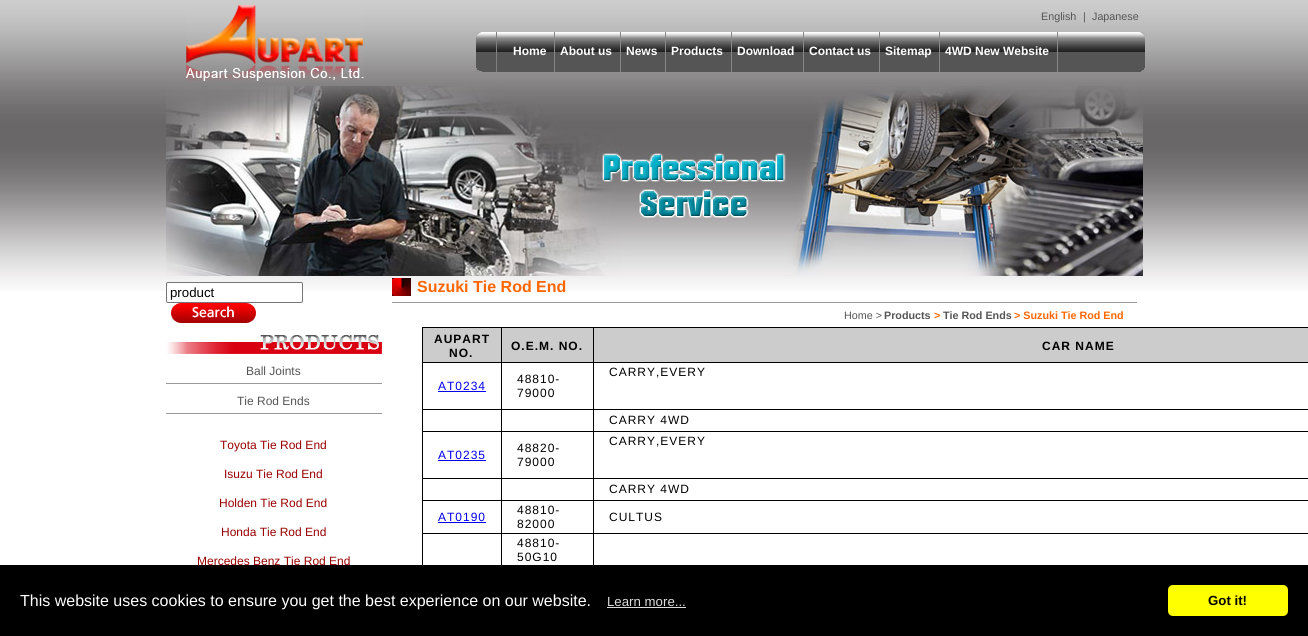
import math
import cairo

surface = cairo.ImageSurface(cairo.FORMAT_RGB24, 1308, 636)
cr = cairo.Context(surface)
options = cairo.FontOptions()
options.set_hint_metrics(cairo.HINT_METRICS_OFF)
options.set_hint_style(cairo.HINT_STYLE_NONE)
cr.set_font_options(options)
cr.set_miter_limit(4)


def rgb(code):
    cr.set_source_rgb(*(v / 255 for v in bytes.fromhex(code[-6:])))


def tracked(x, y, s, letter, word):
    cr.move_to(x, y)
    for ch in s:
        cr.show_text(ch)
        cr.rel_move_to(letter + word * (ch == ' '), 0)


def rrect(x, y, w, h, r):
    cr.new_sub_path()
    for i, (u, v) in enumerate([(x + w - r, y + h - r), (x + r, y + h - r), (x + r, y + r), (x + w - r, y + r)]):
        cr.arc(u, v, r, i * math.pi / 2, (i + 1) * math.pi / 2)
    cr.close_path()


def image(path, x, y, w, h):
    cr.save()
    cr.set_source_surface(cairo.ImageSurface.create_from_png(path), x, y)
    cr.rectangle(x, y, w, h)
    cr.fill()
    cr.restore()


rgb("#ffffff")
cr.paint()
image("img/1.png", 0, 0, 1308, 291)
image("img/2.png", 186, 5, 178, 76)
image("img/3.png", 476, 32, 669, 40)
for x, y, w, h, color in [
    (554, 32, 1, 40, "#888888"),
    (620, 32, 1, 40, "#888888"),
    (665, 32, 1, 40, "#888888"),
    (731, 32, 1, 40, "#888888"),
    (803, 32, 1, 40, "#888888"),
    (879, 32, 1, 40, "#888888"),
    (939, 32, 1, 40, "#888888"),
    (1057, 32, 1, 40, "#888888"),
]:
    rgb(color)
    cr.rectangle(x, y, w, h)
    cr.fill()
image("img/4.png", 166, 86, 977, 190)
rgb("#ffffff")
rrect(166.5, 282.5, 136, 20, 1.5)
cr.fill_preserve()
rgb("#767676")
cr.set_line_width(1)
cr.stroke()
image("img/5.png", 171, 303, 85, 20)
image("img/6.png", 167, 335, 215, 19)
rgb("#999999")
cr.rectangle(166, 383, 216, 1)
cr.fill()
cr.rectangle(166, 413, 216, 1)
cr.fill()
image("img/7.png", 392, 278, 19, 18)
for x, y, w, h, color in [
    (392, 302, 745, 1, "#999999"),
    (422, 327, 886, 1, "#000000"),
    (422, 327, 1, 238, "#000000"),
    (423, 328, 78, 34, "#cccccc"),
    (593, 533, 1, 34, "#000000"),
    (593, 533, 715, 1, "#000000"),
    (593, 500, 1, 34, "#000000"),
    (593, 500, 715, 1, "#000000"),
    (593, 478, 1, 23, "#000000"),
    (593, 478, 715, 1, "#000000"),
    (593, 431, 1, 48, "#000000"),
    (593, 431, 715, 1, "#000000"),
    (593, 409, 1, 23, "#000000"),
    (593, 409, 715, 1, "#000000"),
    (593, 362, 1, 48, "#000000"),
    (593, 362, 715, 1, "#000000"),
    (593, 327, 1, 36, "#000000"),
    (501, 533, 1, 34, "#000000"),
    (501, 533, 93, 1, "#000000"),
    (501, 500, 1, 34, "#000000"),
    (501, 500, 93, 1, "#000000"),
    (501, 478, 1, 23, "#000000"),
    (501, 478, 93, 1, "#000000"),
    (501, 431, 1, 48, "#000000"),
    (501, 431, 93, 1, "#000000"),
    (501, 409, 1, 23, "#000000"),
    (501, 409, 93, 1, "#000000"),
    (501, 362, 1, 48, "#000000"),
    (501, 362, 93, 1, "#000000"),
    (501, 327, 1, 36, "#000000"),
    (422, 362, 80, 1, "#000000"),
    (502, 328, 91, 34, "#cccccc"),
    (594, 328, 714, 34, "#cccccc"),
    (422, 409, 80, 1, "#000000"),
    (438, 391, 48, 1, "#0000ee"),
    (422, 431, 80, 1, "#000000"),
    (422, 478, 80, 1, "#000000"),
    (438, 460, 48, 1, "#0000ee"),
    (422, 500, 80, 1, "#000000"),
    (422, 533, 80, 1, "#000000"),
    (438, 522, 48, 1, "#0000ee"),
]:
    rgb(color)
    cr.rectangle(x, y, w, h)
    cr.fill()
cr.select_font_face("Liberation Sans")
cr.set_font_size(10.75)
rgb("#555555")
for x, y, s in [
    (1041, 20, "English"),
    (1083, 20, "|"),
    (1092, 20, "Japanese"),
]:
    cr.move_to(x, y)
    cr.show_text(s)
cr.select_font_face("Liberation Sans", cairo.FONT_SLANT_NORMAL, cairo.FONT_WEIGHT_BOLD)
cr.set_font_size(12)
rgb("#ffffff")
for x, y, s in [
    (513, 55, "Home"),
    (560, 55, "About us"),
    (626, 55, "News"),
    (671, 55, "Products"),
    (737, 55, "Download"),
    (809, 55, "Contact us"),
    (885, 55, "Sitemap"),
    (945, 55, "4WD New Website"),
]:
    cr.move_to(x, y)
    cr.show_text(s)
cr.select_font_face("Liberation Sans")
cr.set_font_size(13.25)
rgb("#000000")
cr.move_to(170, 297)
cr.show_text("product")
cr.set_font_size(12)
rgb("#555555")
cr.move_to(246, 375)
cr.show_text("Ball Joints")
cr.move_to(237, 405)
cr.show_text("Tie Rod Ends")
rgb("#990000")
for x, y, s in [
    (220, 449, "Toyota Tie Rod End"),
    (224, 478, "Isuzu Tie Rod End"),
    (219, 507, "Holden Tie Rod End"),
    (221, 536, "Honda Tie Rod End"),
    (197, 565, "Mercedes Benz Tie Rod End"),
]:
    cr.move_to(x, y)
    cr.show_text(s)
cr.select_font_face("Liberation Sans", cairo.FONT_SLANT_NORMAL, cairo.FONT_WEIGHT_BOLD)
cr.set_font_size(16)
rgb("#ff6600")
cr.move_to(417, 292)
cr.show_text("Suzuki Tie Rod End")
cr.select_font_face("Liberation Sans")
cr.set_font_size(10.75)
rgb("#555555")
cr.move_to(844, 319)
cr.show_text("Home >")
cr.select_font_face("Liberation Sans", cairo.FONT_SLANT_NORMAL, cairo.FONT_WEIGHT_BOLD)
cr.move_to(884, 319)
cr.show_text("Products")
rgb("#ff6600")
cr.move_to(934, 319)
cr.show_text(">")
rgb("#555555")
cr.move_to(943, 319)
cr.show_text("Tie Rod Ends")
rgb("#ff6600")
cr.move_to(1014, 319)
cr.show_text("> Suzuki Tie Rod End")
cr.set_font_size(12)
rgb("#000000")
for x, y, s in [
    (434, 343, "AUPART"),
    (449, 357, "NO."),
    (511, 350, "O.E.M. NO."),
    (1042, 350, "CAR NAME"),
]:
    tracked(x, y, s, 1, 0)
cr.select_font_face("Liberation Sans")
tracked(609, 376, "CARRY,EVERY", 1, 0)
rgb("#0000ee")
tracked(438, 390, "AT0234", 1, 0)
rgb("#000000")
for x, y, s in [
    (517, 383, "48810-"),
    (517, 397, "79000"),
    (609, 424, "CARRY 4WD"),
    (609, 445, "CARRY,EVERY"),
]:
    tracked(x, y, s, 1, 0)
rgb("#0000ee")
tracked(438, 459, "AT0235", 1, 0)
rgb("#000000")
for x, y, s in [
    (517, 452, "48820-"),
    (517, 466, "79000"),
    (609, 493, "CARRY 4WD"),
]:
    tracked(x, y, s, 1, 0)
rgb("#0000ee")
tracked(438, 521, "AT0190", 1, 0)
rgb("#000000")
for x, y, s in [
    (517, 514, "48810-"),
    (517, 528, "82000"),
    (609, 521, "CULTUS"),
    (517, 547, "48810-"),
    (517, 561, "50G10"),
]:
    tracked(x, y, s, 1, 0)
cr.rectangle(0, 565, 1308, 71)
cr.fill()
cr.set_font_size(16)
rgb("#ffffff")
cr.move_to(20, 606)
cr.show_text("This website uses cookies to ensure you get the best experience on our website.")
cr.set_font_size(13.25)
rgb("#dddddd")
cr.move_to(607, 606)
cr.show_text("Learn more...")
cr.rectangle(607, 607, 79, 1)
cr.fill()
rgb("#ffff00")
rrect(1168, 585, 120, 31, 5)
cr.fill()
cr.select_font_face("Liberation Sans", cairo.FONT_SLANT_NORMAL, cairo.FONT_WEIGHT_BOLD)
rgb("#000000")
cr.move_to(1208, 605)
cr.show_text("Got it!")
surface.write_to_png("page.png")
